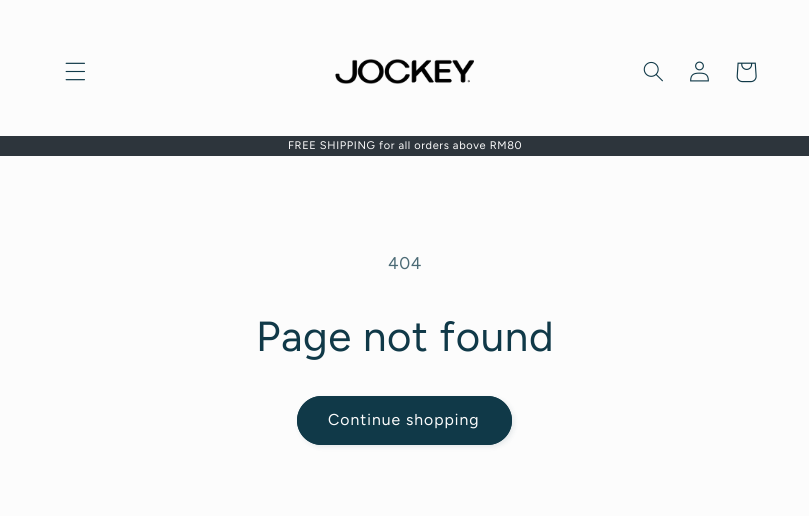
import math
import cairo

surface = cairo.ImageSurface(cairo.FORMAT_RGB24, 809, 516)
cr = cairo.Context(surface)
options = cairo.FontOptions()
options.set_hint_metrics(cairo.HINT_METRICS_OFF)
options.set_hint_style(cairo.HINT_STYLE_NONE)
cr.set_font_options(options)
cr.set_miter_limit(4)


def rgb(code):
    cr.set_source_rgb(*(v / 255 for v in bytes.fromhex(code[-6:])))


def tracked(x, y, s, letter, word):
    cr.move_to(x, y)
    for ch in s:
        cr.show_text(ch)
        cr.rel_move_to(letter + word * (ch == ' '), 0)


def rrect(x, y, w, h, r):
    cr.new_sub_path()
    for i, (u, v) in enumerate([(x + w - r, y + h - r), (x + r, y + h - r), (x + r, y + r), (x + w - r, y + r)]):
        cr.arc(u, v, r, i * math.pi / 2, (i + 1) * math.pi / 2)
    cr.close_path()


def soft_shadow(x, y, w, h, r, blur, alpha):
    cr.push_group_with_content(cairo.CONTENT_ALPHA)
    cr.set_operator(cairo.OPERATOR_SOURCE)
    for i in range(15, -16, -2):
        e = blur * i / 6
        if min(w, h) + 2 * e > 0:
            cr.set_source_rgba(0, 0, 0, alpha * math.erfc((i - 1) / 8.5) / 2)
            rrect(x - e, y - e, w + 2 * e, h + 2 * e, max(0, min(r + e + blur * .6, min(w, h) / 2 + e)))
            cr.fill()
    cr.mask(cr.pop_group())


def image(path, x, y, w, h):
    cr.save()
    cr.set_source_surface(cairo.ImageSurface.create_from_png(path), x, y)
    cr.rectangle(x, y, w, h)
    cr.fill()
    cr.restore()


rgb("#fcfcfc")
cr.paint()
image("img/1.png", 65, 62, 20, 19)
image("img/2.png", 335, 59, 139, 25)
image("img/3.png", 643, 61, 20, 21)
image("img/4.png", 690, 61, 19, 21)
image("img/5.png", 736, 62, 21, 21)
rgb("#2d353c")
cr.rectangle(0, 136, 809, 20)
cr.fill()
rgb("#103948")
soft_shadow(299, 398, 215, 49, 24.5, 2.5, 0.1)
rgb("#103948")
rrect(297, 396, 215, 49, 24.5)
cr.fill()
rrect(297.5, 396.5, 214, 48, 24)
cr.set_line_width(1)
cr.stroke()
cr.select_font_face("Figtree")
cr.set_font_size(11)
rgb("#fcfcfc")
tracked(288, 149, "FREE SHIPPING for all orders above RM80", 0.65, 0)
cr.set_font_size(17)
rgb("#4b6a75")
tracked(388, 269, "404", 0.65, 0)
cr.set_font_size(42)
rgb("#103948")
tracked(256, 351, "Page not found", 0.65, 0)
cr.set_font_size(15.75)
rgb("#fcfcfc")
tracked(328, 425, "Continue shopping", 1, 0)
surface.write_to_png("page.png")
